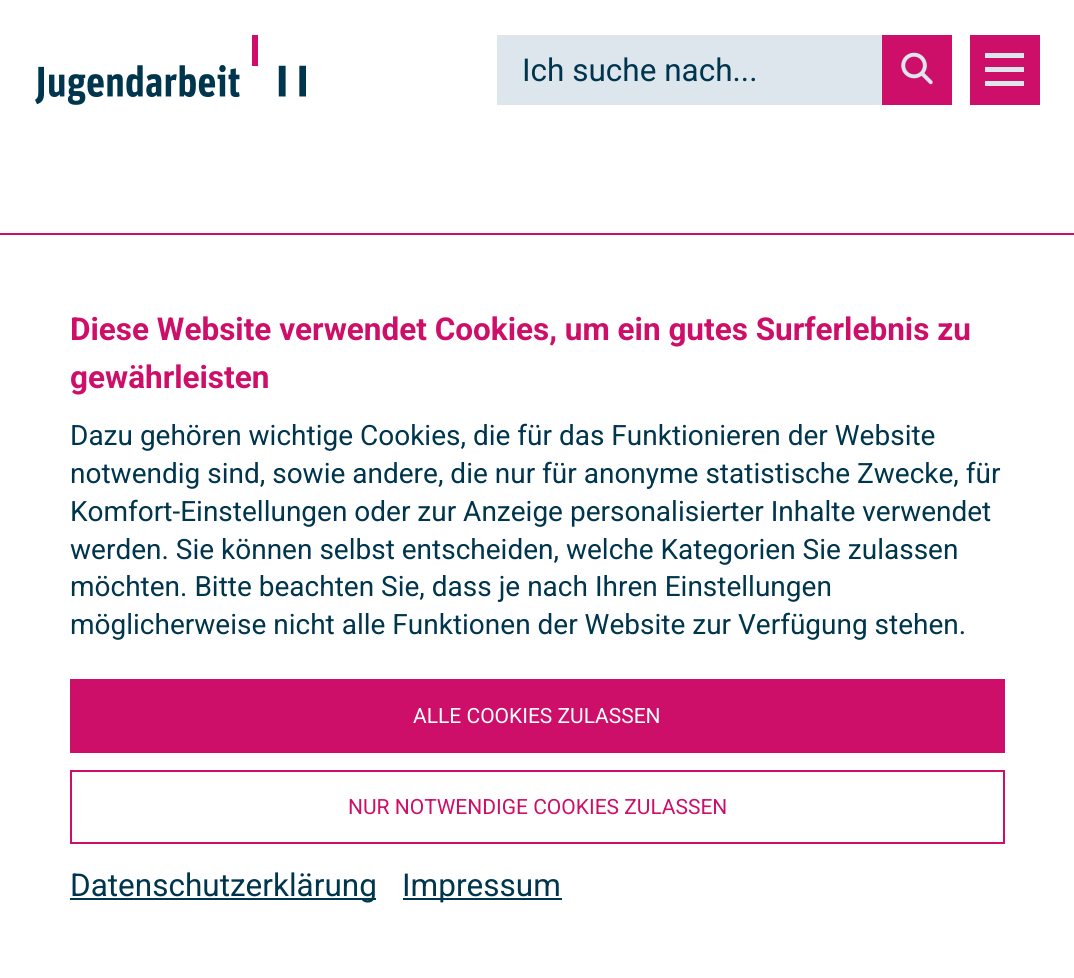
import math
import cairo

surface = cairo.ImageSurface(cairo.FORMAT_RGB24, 1074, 978)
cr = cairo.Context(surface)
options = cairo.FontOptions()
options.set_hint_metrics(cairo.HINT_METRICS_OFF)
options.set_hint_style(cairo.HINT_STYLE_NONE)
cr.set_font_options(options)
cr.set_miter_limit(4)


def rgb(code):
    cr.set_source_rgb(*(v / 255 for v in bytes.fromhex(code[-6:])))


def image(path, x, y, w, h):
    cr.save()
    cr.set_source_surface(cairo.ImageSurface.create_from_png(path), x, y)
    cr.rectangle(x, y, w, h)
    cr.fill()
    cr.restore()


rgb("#ffffff")
cr.paint()
image("img/1.png", 35, 35, 271, 70)
rgb("#dde5ed")
cr.rectangle(497, 35, 385, 70)
cr.fill()
rgb("#ce0f69")
cr.rectangle(882, 35, 70, 70)
cr.fill()
image("img/2.png", 901, 52, 32, 33)
for x, y, w, h, color in [
    (970, 35, 70, 70, "#ce0f69"),
    (985, 53, 39, 5, "#dde5ed"),
    (985, 67, 39, 5, "#dde5ed"),
    (985, 81, 39, 5, "#dde5ed"),
    (0, 233, 1074, 2, "#ce0f69"),
    (70, 679, 935, 74, "#ce0f69"),
]:
    rgb(color)
    cr.rectangle(x, y, w, h)
    cr.fill()
cr.rectangle(71, 771, 933, 72)
cr.stroke()
rgb("#00354e")
cr.rectangle(70, 898, 306, 2)
cr.fill()
cr.rectangle(403, 898, 159, 2)
cr.fill()
cr.select_font_face("Roboto")
cr.set_font_size(31.5)
cr.move_to(522, 81)
cr.show_text("Ich suche nach...")
cr.select_font_face("Roboto", cairo.FONT_SLANT_NORMAL, cairo.FONT_WEIGHT_BOLD)
rgb("#ce0f69")
cr.move_to(70, 340)
cr.show_text("Diese Website verwendet Cookies, um ein gutes Surferlebnis zu")
cr.move_to(70, 388)
cr.show_text("gewährleisten")
cr.select_font_face("Roboto")
cr.set_font_size(28)
rgb("#00354e")
for x, y, s in [
    (70, 445, "Dazu gehören wichtige Cookies, die für das Funktionieren der Website"),
    (70, 483, "notwendig sind, sowie andere, die nur für anonyme statistische Zwecke, für"),
    (70, 521, "Komfort-Einstellungen oder zur Anzeige personalisierter Inhalte verwendet"),
    (70, 559, "werden. Sie können selbst entscheiden, welche Kategorien Sie zulassen"),
    (70, 596, "möchten. Bitte beachten Sie, dass je nach Ihren Einstellungen"),
    (70, 634, "möglicherweise nicht alle Funktionen der Website zur Verfügung stehen."),
]:
    cr.move_to(x, y)
    cr.show_text(s)
cr.set_font_size(21)
rgb("#ffffff")
cr.move_to(413, 723)
cr.show_text("ALLE COOKIES ZULASSEN")
rgb("#ce0f69")
cr.move_to(348, 814)
cr.show_text("NUR NOTWENDIGE COOKIES ZULASSEN")
cr.set_font_size(31.5)
rgb("#00354e")
cr.move_to(70, 896)
cr.show_text("Datenschutzerklärung")
cr.move_to(402, 896)
cr.show_text("Impressum")
surface.write_to_png("page.png")
